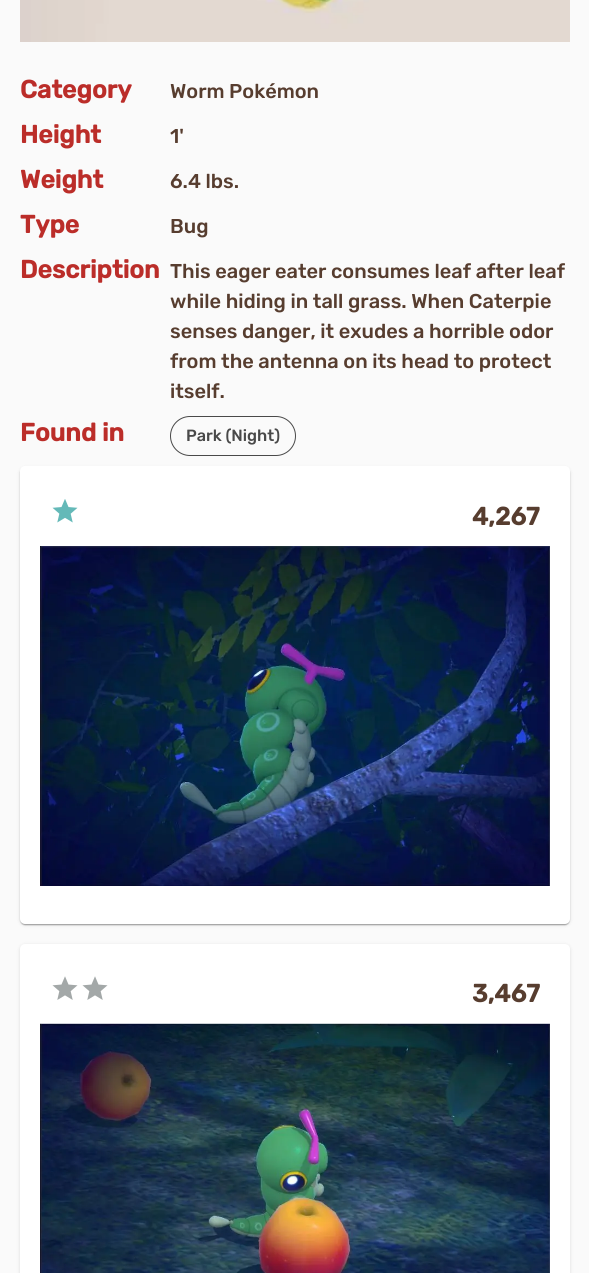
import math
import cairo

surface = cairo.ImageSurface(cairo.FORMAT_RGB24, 589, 1273)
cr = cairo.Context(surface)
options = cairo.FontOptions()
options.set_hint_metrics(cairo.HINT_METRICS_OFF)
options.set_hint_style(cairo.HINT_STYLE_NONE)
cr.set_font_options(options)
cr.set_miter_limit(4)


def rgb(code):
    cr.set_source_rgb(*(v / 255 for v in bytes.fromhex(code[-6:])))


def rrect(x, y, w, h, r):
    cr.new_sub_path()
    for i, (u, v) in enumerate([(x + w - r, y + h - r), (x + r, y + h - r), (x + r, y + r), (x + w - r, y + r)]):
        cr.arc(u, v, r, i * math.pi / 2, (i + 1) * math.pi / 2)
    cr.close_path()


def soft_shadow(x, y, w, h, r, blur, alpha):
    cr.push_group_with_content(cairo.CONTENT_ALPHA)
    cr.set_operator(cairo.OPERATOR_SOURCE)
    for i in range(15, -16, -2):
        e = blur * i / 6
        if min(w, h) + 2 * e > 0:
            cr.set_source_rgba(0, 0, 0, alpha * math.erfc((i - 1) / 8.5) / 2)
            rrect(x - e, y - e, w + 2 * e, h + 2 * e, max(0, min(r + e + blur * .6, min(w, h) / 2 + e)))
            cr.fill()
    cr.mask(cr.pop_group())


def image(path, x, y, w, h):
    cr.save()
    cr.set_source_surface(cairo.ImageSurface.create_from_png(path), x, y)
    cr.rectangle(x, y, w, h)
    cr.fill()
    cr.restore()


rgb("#fafafa")
cr.paint()
image("img/1.png", 20, 0, 550, 42)
rrect(170.5, 416.5, 125, 39, 19.5)
rgb("#494949")
cr.set_line_width(1)
cr.stroke()
rgb("#000000")
soft_shadow(20, 468, 550, 457, 5, 2, 0.12)
soft_shadow(20, 468, 550, 457, 5, 0.5, 0.14)
soft_shadow(21, 470, 548, 455, 4, 0.5, 0.2)
rgb("#ffffff")
rrect(20, 466, 550, 458, 5)
cr.fill()
image("img/2.png", 52, 499, 26, 24)
image("img/3.png", 40, 546, 510, 340)
rgb("#000000")
soft_shadow(20, 945, 550, 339, 5, 2, 0.12)
rgb("#ffffff")
rrect(20, 944, 550, 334, 5)
cr.fill()
image("img/4.png", 52, 976, 26, 24)
image("img/4.png", 82, 976, 26, 24)
image("img/5.png", 40, 1023, 510, 250)
cr.select_font_face("Rubik", cairo.FONT_SLANT_NORMAL, cairo.FONT_WEIGHT_BOLD)
cr.set_font_size(25)
rgb("#bb2d29")
cr.move_to(20, 98)
cr.show_text("Category")
cr.select_font_face("Rubik Medium")
cr.set_font_size(20)
rgb("#573d2f")
cr.move_to(170, 98)
cr.show_text("Worm Pokémon")
cr.select_font_face("Rubik", cairo.FONT_SLANT_NORMAL, cairo.FONT_WEIGHT_BOLD)
cr.set_font_size(25)
rgb("#bb2d29")
cr.move_to(20, 143)
cr.show_text("Height")
cr.select_font_face("Rubik Medium")
cr.set_font_size(20)
rgb("#573d2f")
cr.move_to(170, 143)
cr.show_text("1'")
cr.select_font_face("Rubik", cairo.FONT_SLANT_NORMAL, cairo.FONT_WEIGHT_BOLD)
cr.set_font_size(25)
rgb("#bb2d29")
cr.move_to(20, 188)
cr.show_text("Weight")
cr.select_font_face("Rubik Medium")
cr.set_font_size(20)
rgb("#573d2f")
cr.move_to(170, 188)
cr.show_text("6.4 lbs.")
cr.select_font_face("Rubik", cairo.FONT_SLANT_NORMAL, cairo.FONT_WEIGHT_BOLD)
cr.set_font_size(25)
rgb("#bb2d29")
cr.move_to(20, 233)
cr.show_text("Type")
cr.select_font_face("Rubik Medium")
cr.set_font_size(20)
rgb("#573d2f")
cr.move_to(170, 233)
cr.show_text("Bug")
cr.select_font_face("Rubik", cairo.FONT_SLANT_NORMAL, cairo.FONT_WEIGHT_BOLD)
cr.set_font_size(25)
rgb("#bb2d29")
cr.move_to(20, 278)
cr.show_text("Description")
cr.select_font_face("Rubik Medium")
cr.set_font_size(20)
rgb("#573d2f")
for x, y, s in [
    (170, 278, "This eager eater consumes leaf after leaf"),
    (170, 308, "while hiding in tall grass. When Caterpie"),
    (170, 338, "senses danger, it exudes a horrible odor"),
    (170, 368, "from the antenna on its head to protect"),
    (170, 398, "itself."),
]:
    cr.move_to(x, y)
    cr.show_text(s)
cr.select_font_face("Rubik", cairo.FONT_SLANT_NORMAL, cairo.FONT_WEIGHT_BOLD)
cr.set_font_size(25)
rgb("#bb2d29")
cr.move_to(20, 441)
cr.show_text("Found in")
cr.select_font_face("Rubik Medium")
cr.set_font_size(16.25)
rgb("#494949")
cr.move_to(186, 441)
cr.show_text("Park (Night)")
cr.select_font_face("Rubik", cairo.FONT_SLANT_NORMAL, cairo.FONT_WEIGHT_BOLD)
cr.set_font_size(25)
rgb("#573d2f")
cr.move_to(472, 525)
cr.show_text("4,267")
cr.move_to(472, 1002)
cr.show_text("3,467")
surface.write_to_png("page.png")
